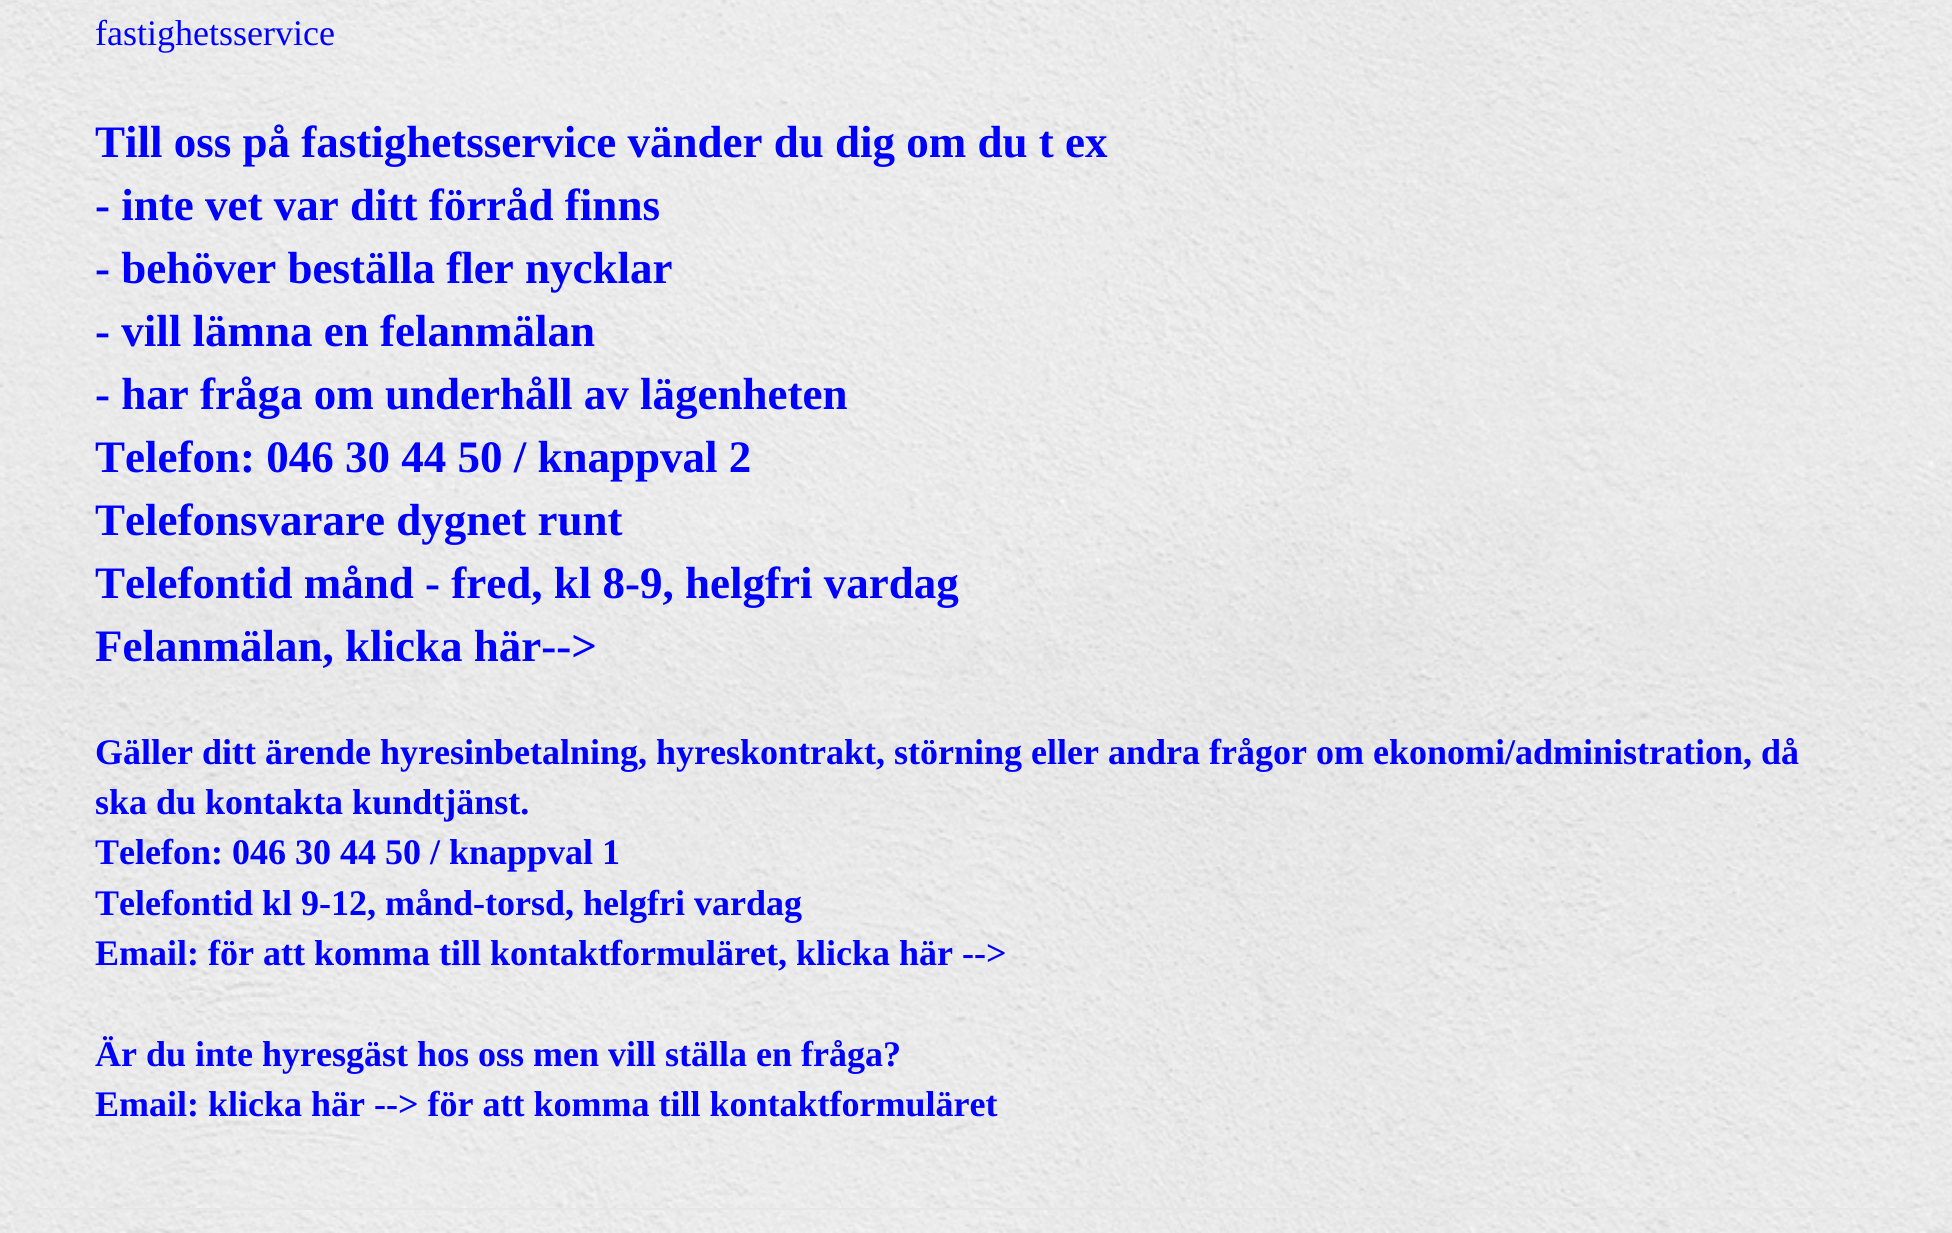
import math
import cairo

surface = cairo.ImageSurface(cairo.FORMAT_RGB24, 1952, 1233)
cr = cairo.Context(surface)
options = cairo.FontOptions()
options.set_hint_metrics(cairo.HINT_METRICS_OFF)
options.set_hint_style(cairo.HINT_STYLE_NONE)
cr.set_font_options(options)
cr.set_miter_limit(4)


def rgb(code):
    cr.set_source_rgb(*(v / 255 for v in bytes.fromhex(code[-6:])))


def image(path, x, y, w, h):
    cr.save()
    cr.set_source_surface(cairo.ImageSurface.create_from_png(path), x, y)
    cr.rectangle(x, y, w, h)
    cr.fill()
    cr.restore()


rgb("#ffffff")
cr.paint()
image("img/1.png", 0, 0, 1952, 1233)
rgb("#e6e6e6")
cr.rectangle(38, 1208, 1877, 2)
cr.fill()
cr.select_font_face("Liberation Serif")
cr.set_font_size(36)
rgb("#0000ff")
cr.move_to(95, 45)
cr.show_text("fastighetsservice")
cr.select_font_face("Liberation Serif", cairo.FONT_SLANT_NORMAL, cairo.FONT_WEIGHT_BOLD)
cr.set_font_size(45)
for x, y, s in [
    (95, 157, "Till oss på fastighetsservice vänder du dig om du t ex"),
    (95, 220, "- inte vet var ditt förråd finns"),
    (95, 283, "- behöver beställa fler nycklar"),
    (95, 346, "- vill lämna en felanmälan"),
    (95, 409, "- har fråga om underhåll av lägenheten"),
    (95, 472, "Telefon: 046 30 44 50 / knappval 2"),
    (95, 535, "Telefonsvarare dygnet runt"),
    (95, 598, "Telefontid månd - fred, kl 8-9, helgfri vardag"),
    (95, 661, "Felanmälan, klicka här-->"),
]:
    cr.move_to(x, y)
    cr.show_text(s)
cr.set_font_size(36)
for x, y, s in [
    (95, 764, "Gäller ditt ärende hyresinbetalning, hyreskontrakt, störning eller andra frågor om ekonomi/administration, då"),
    (95, 814, "ska du kontakta kundtjänst."),
    (95, 864, "Telefon: 046 30 44 50 / knappval 1"),
    (95, 915, "Telefontid kl 9-12, månd-torsd, helgfri vardag"),
    (95, 965, "Email: för att komma till kontaktformuläret, klicka här -->"),
    (95, 1066, "Är du inte hyresgäst hos oss men vill ställa en fråga?"),
    (95, 1116, "Email: klicka här --> för att komma till kontaktformuläret"),
]:
    cr.move_to(x, y)
    cr.show_text(s)
surface.write_to_png("page.png")
